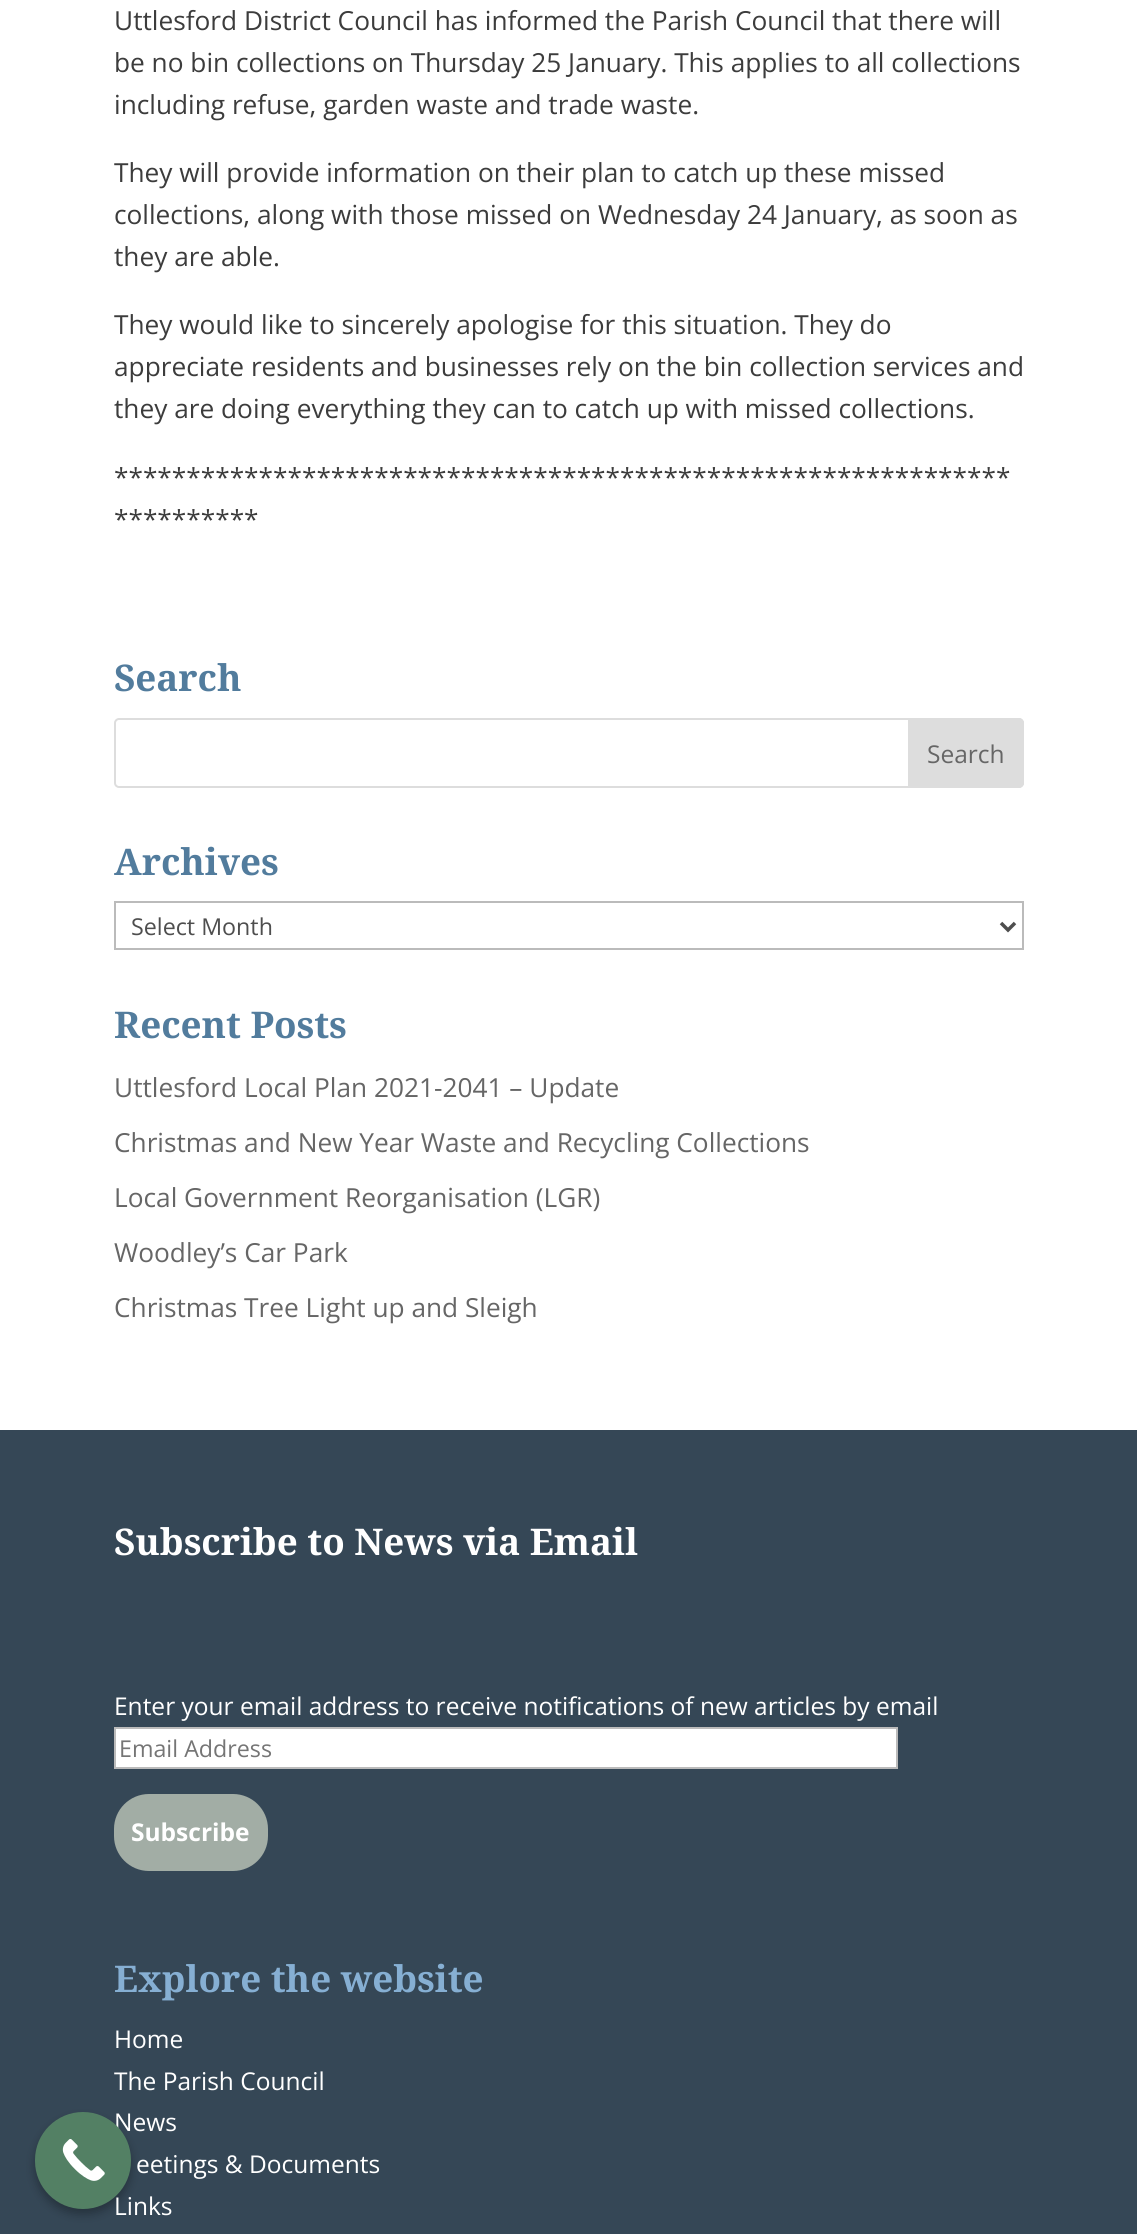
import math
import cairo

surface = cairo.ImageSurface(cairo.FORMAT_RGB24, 1137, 2234)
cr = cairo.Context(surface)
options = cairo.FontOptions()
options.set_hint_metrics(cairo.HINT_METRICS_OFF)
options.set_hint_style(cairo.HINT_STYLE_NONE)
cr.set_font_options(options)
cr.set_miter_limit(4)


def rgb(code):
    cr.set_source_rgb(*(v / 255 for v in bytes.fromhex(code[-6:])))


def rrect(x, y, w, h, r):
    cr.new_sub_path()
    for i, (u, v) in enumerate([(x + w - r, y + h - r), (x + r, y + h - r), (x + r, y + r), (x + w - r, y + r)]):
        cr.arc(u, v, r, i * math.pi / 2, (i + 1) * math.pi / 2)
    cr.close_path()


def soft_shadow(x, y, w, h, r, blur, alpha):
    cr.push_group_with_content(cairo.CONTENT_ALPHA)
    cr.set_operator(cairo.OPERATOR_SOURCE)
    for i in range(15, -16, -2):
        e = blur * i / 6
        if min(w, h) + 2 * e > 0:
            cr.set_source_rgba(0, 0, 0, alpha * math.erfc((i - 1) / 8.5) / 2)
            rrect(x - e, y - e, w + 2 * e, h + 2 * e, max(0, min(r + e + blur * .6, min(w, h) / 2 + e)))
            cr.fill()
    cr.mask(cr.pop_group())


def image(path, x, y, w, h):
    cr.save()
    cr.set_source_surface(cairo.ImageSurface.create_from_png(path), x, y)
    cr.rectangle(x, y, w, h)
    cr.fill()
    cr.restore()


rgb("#ffffff")
cr.paint()
rgb("#354756")
cr.rectangle(0, 1430, 1137, 804)
cr.fill()
rgb("#000000")
soft_shadow(35, 2118, 96, 96, 48, 5, 0.3)
rrect(115, 719, 908, 68, 4)
rgb("#dddddd")
cr.stroke()
cr.new_path()
cr.move_to(909, 719)
cr.line_to(1019, 719)
cr.curve_to(1021, 719, 1023, 721, 1023, 723)
cr.line_to(1023, 783)
cr.curve_to(1023, 785, 1021, 787, 1019, 787)
cr.line_to(909, 787)
cr.close_path()
cr.fill_preserve()
cr.stroke()
cr.rectangle(115, 902, 908, 47)
rgb("#bbbbbb")
cr.stroke()
cr.new_path()
cr.move_to(1001, 923)
cr.line_to(1008, 930)
cr.line_to(1015, 923)
rgb("#4e4e4e")
cr.set_line_width(3.5)
cr.stroke()
rgb("#ffffff")
cr.rectangle(115, 1728, 782, 40)
cr.fill_preserve()
rgb("#bbbbbb")
cr.set_line_width(2)
cr.stroke()
rgb("#a2ada5")
rrect(114, 1794, 154, 77, 35)
cr.fill()
cr.select_font_face("Open Sans")
cr.set_font_size(26.25)
rgb("#3c3c3c")
for x, y, s in [
    (114, 30, "Uttlesford District Council has informed the Parish Council that there will"),
    (114, 72, "be no bin collections on Thursday 25 January. This applies to all collections"),
    (114, 114, "including refuse, garden waste and trade waste."),
    (114, 182, "They will provide information on their plan to catch up these missed"),
    (114, 224, "collections, along with those missed on Wednesday 24 January, as soon as"),
    (114, 266, "they are able."),
    (114, 334, "They would like to sincerely apologise for this situation. They do"),
    (114, 376, "appreciate residents and businesses rely on the bin collection services and"),
    (114, 418, "they are doing everything they can to catch up with missed collections."),
    (114, 487, "**************************************************************"),
    (114, 529, "**********"),
]:
    cr.move_to(x, y)
    cr.show_text(s)
cr.select_font_face("Noto Serif", cairo.FONT_SLANT_NORMAL, cairo.FONT_WEIGHT_BOLD)
cr.set_font_size(36.75)
rgb("#527c9d")
cr.move_to(114, 691)
cr.show_text("Search")
cr.select_font_face("Open Sans")
cr.set_font_size(24.5)
rgb("#666666")
cr.move_to(927, 763)
cr.show_text("Search")
cr.select_font_face("Noto Serif", cairo.FONT_SLANT_NORMAL, cairo.FONT_WEIGHT_BOLD)
cr.set_font_size(36.75)
rgb("#527c9d")
cr.move_to(114, 875)
cr.show_text("Archives")
cr.select_font_face("Open Sans")
cr.set_font_size(23.25)
rgb("#4e4e4e")
cr.move_to(131, 935)
cr.show_text("Select Month")
cr.select_font_face("Noto Serif", cairo.FONT_SLANT_NORMAL, cairo.FONT_WEIGHT_BOLD)
cr.set_font_size(36.75)
rgb("#527c9d")
cr.move_to(114, 1038)
cr.show_text("Recent Posts")
cr.select_font_face("Open Sans")
cr.set_font_size(26.25)
rgb("#666666")
for x, y, s in [
    (114, 1097, "Uttlesford Local Plan 2021-2041 – Update"),
    (114, 1152, "Christmas and New Year Waste and Recycling Collections"),
    (114, 1207, "Local Government Reorganisation (LGR)"),
    (114, 1262, "Woodley’s Car Park"),
    (114, 1317, "Christmas Tree Light up and Sleigh"),
]:
    cr.move_to(x, y)
    cr.show_text(s)
cr.select_font_face("Noto Serif", cairo.FONT_SLANT_NORMAL, cairo.FONT_WEIGHT_BOLD)
cr.set_font_size(36.75)
rgb("#ffffff")
cr.move_to(114, 1555)
cr.show_text("Subscribe to News via Email")
cr.select_font_face("Open Sans")
cr.set_font_size(24.5)
cr.move_to(114, 1715)
cr.show_text("Enter your email address to receive notifications of new articles by email")
cr.set_font_size(23.25)
rgb("#757575")
cr.move_to(119, 1757)
cr.show_text("Email Address")
cr.select_font_face("Open Sans", cairo.FONT_SLANT_NORMAL, cairo.FONT_WEIGHT_BOLD)
cr.set_font_size(24.5)
rgb("#ffffff")
cr.move_to(131, 1841)
cr.show_text("Subscribe")
cr.select_font_face("Noto Serif", cairo.FONT_SLANT_NORMAL, cairo.FONT_WEIGHT_BOLD)
cr.set_font_size(36.75)
rgb("#86afd3")
cr.move_to(114, 1992)
cr.show_text("Explore the website")
cr.select_font_face("Open Sans")
cr.set_font_size(24.5)
rgb("#ffffff")
for x, y, s in [
    (114, 2048, "Home"),
    (114, 2090, "The Parish Council"),
    (114, 2131, "News"),
    (136, 2173, "eetings & Documents"),
    (114, 2215, "Links"),
]:
    cr.move_to(x, y)
    cr.show_text(s)
rgb("#538064")
rrect(35, 2112, 96, 97, 48)
cr.fill()
image("img/1.png", 62, 2139, 43, 42)
surface.write_to_png("page.png")
